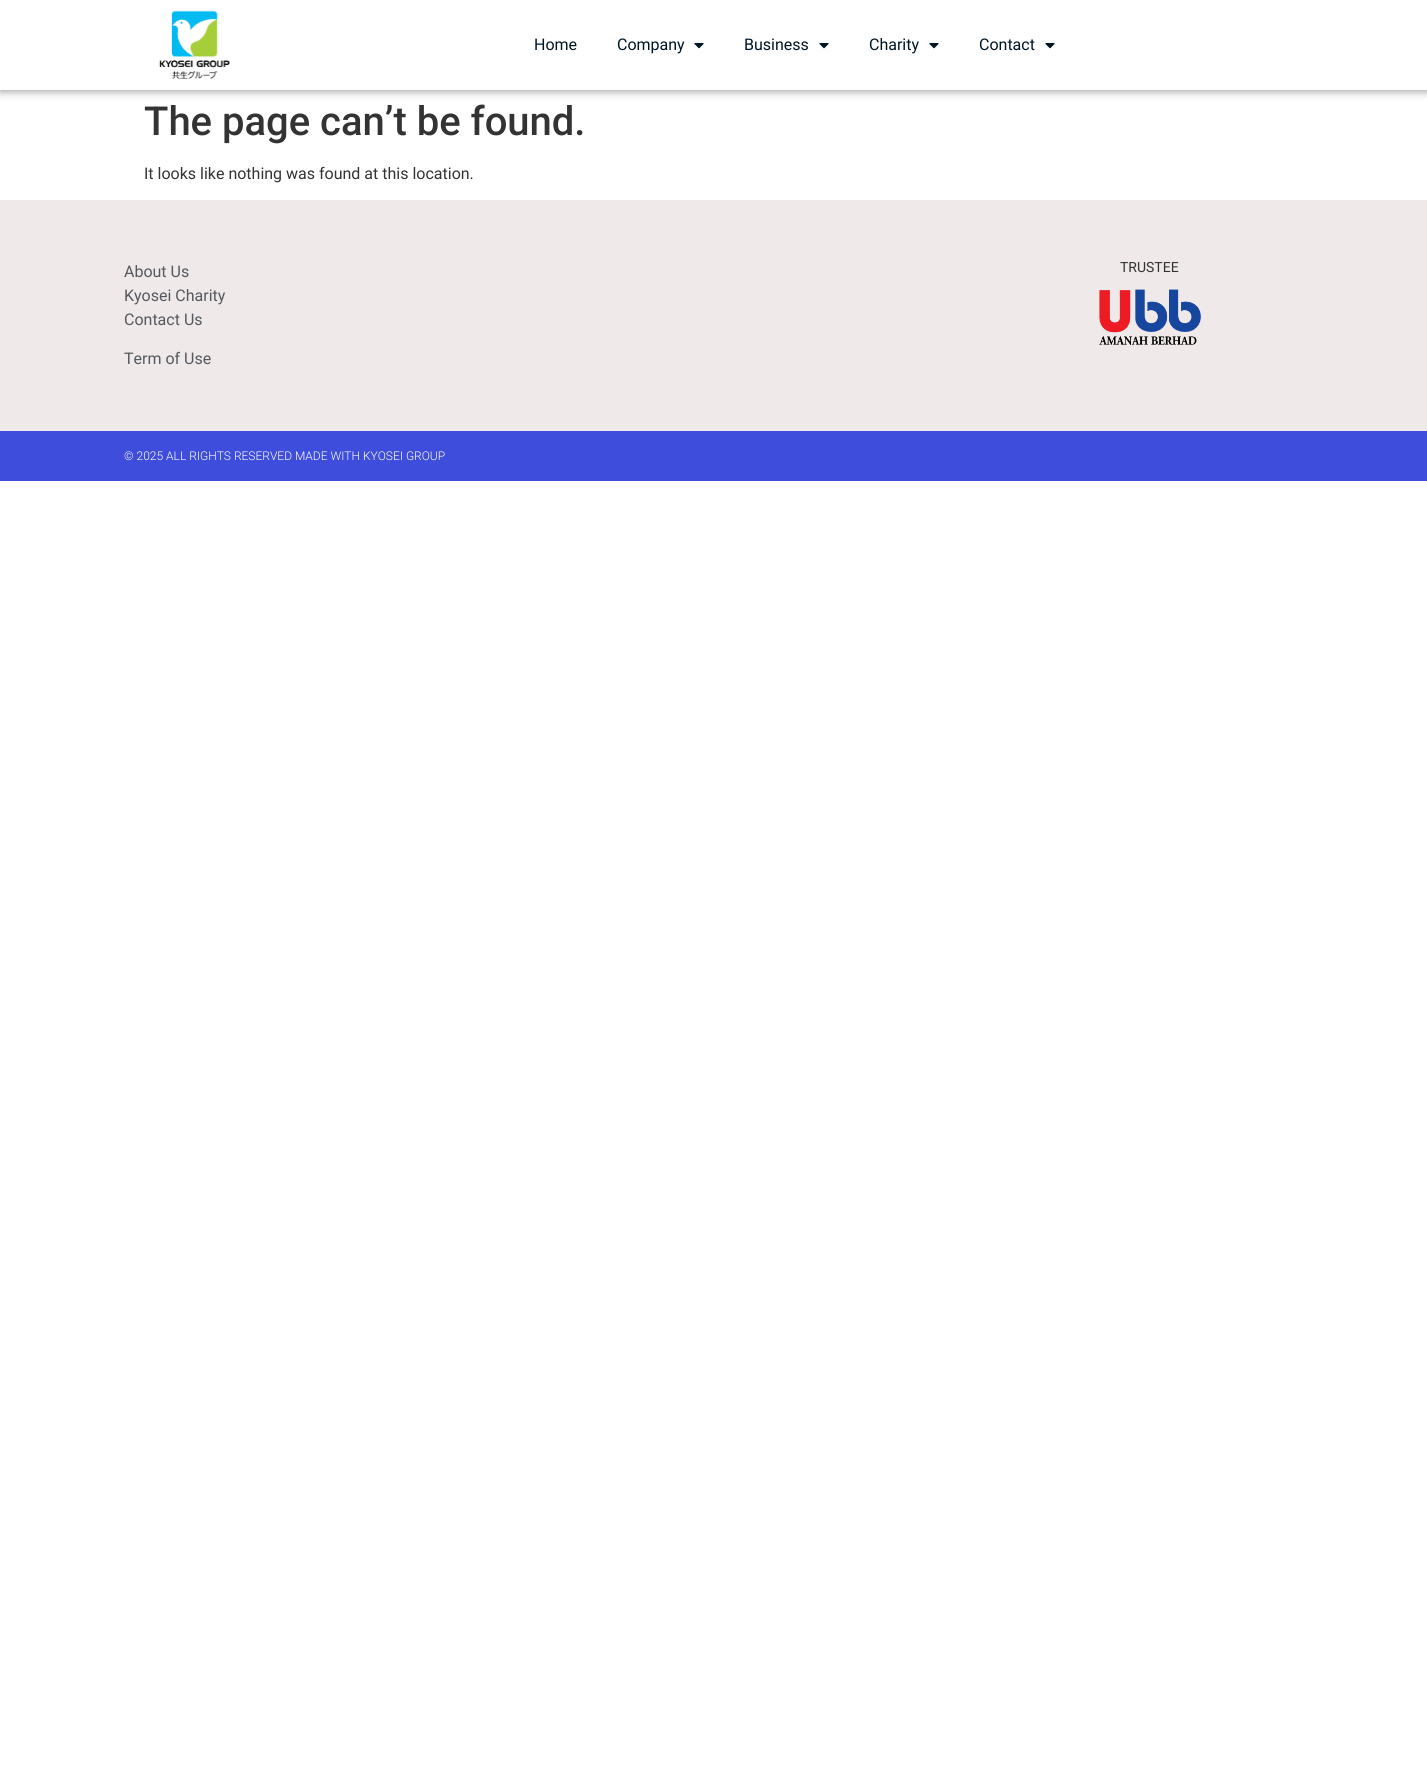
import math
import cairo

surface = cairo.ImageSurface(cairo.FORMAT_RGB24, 1427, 1780)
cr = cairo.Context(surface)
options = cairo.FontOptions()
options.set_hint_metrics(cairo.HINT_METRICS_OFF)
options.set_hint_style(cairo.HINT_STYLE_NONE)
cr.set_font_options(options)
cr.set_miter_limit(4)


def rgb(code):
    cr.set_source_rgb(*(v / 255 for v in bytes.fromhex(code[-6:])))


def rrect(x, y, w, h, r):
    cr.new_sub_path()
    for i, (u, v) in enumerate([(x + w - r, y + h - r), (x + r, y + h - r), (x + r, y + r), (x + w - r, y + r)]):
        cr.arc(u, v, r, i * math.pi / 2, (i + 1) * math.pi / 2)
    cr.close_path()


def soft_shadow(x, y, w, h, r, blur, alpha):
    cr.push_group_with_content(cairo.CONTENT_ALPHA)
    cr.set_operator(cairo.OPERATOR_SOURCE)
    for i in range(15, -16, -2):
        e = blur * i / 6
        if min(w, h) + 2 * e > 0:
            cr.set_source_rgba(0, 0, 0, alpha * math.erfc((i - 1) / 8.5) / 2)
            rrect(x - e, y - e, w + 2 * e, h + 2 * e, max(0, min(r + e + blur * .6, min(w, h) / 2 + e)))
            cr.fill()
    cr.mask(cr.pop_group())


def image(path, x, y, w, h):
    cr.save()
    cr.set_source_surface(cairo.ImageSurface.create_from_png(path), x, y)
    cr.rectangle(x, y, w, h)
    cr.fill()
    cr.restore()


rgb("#ffffff")
cr.paint()
rgb("#000000")
soft_shadow(0, 0, 1427, 90, 0, 5, 0.5)
rgb("#ffffff")
cr.rectangle(0, 0, 1427, 90)
cr.fill()
image("img/1.png", 159, 10, 71, 69)
image("img/2.png", 694, 43, 10, 6)
image("img/2.png", 819, 43, 10, 6)
image("img/2.png", 929, 43, 10, 6)
image("img/2.png", 1045, 43, 10, 6)
rgb("#efe9e9")
cr.rectangle(0, 200, 1427, 231)
cr.fill()
image("img/3.png", 1099, 289, 102, 56)
rgb("#3f4ddc")
cr.rectangle(0, 431, 1427, 50)
cr.fill()
cr.select_font_face("Roboto")
cr.set_font_size(16)
rgb("#001524")
for x, y, s in [
    (534, 50, "Home"),
    (617, 50, "Company"),
    (744, 50, "Business"),
    (869, 50, "Charity"),
    (979, 50, "Contact"),
]:
    cr.move_to(x, y)
    cr.show_text(s)
cr.select_font_face("Roboto Medium")
cr.set_font_size(40)
rgb("#333333")
cr.move_to(144, 135)
cr.show_text("The page can’t be found.")
cr.select_font_face("Roboto")
cr.set_font_size(16)
cr.move_to(144, 179)
cr.show_text("It looks like nothing was found at this location.")
rgb("#54595f")
for x, y, s in [
    (124, 277, "About Us"),
    (124, 301, "Kyosei Charity"),
    (124, 325, "Contact Us"),
    (124, 364, "Term of Use"),
]:
    cr.move_to(x, y)
    cr.show_text(s)
cr.set_font_size(14)
rgb("#333333")
cr.move_to(1120, 272)
cr.show_text("TRUSTEE")
cr.select_font_face("Roboto Light")
cr.set_font_size(12)
rgb("#ffffff")
cr.move_to(124, 460)
cr.show_text("© 2025 ALL RIGHTS RESERVED MADE WITH KYOSEI GROUP")
surface.write_to_png("page.png")
